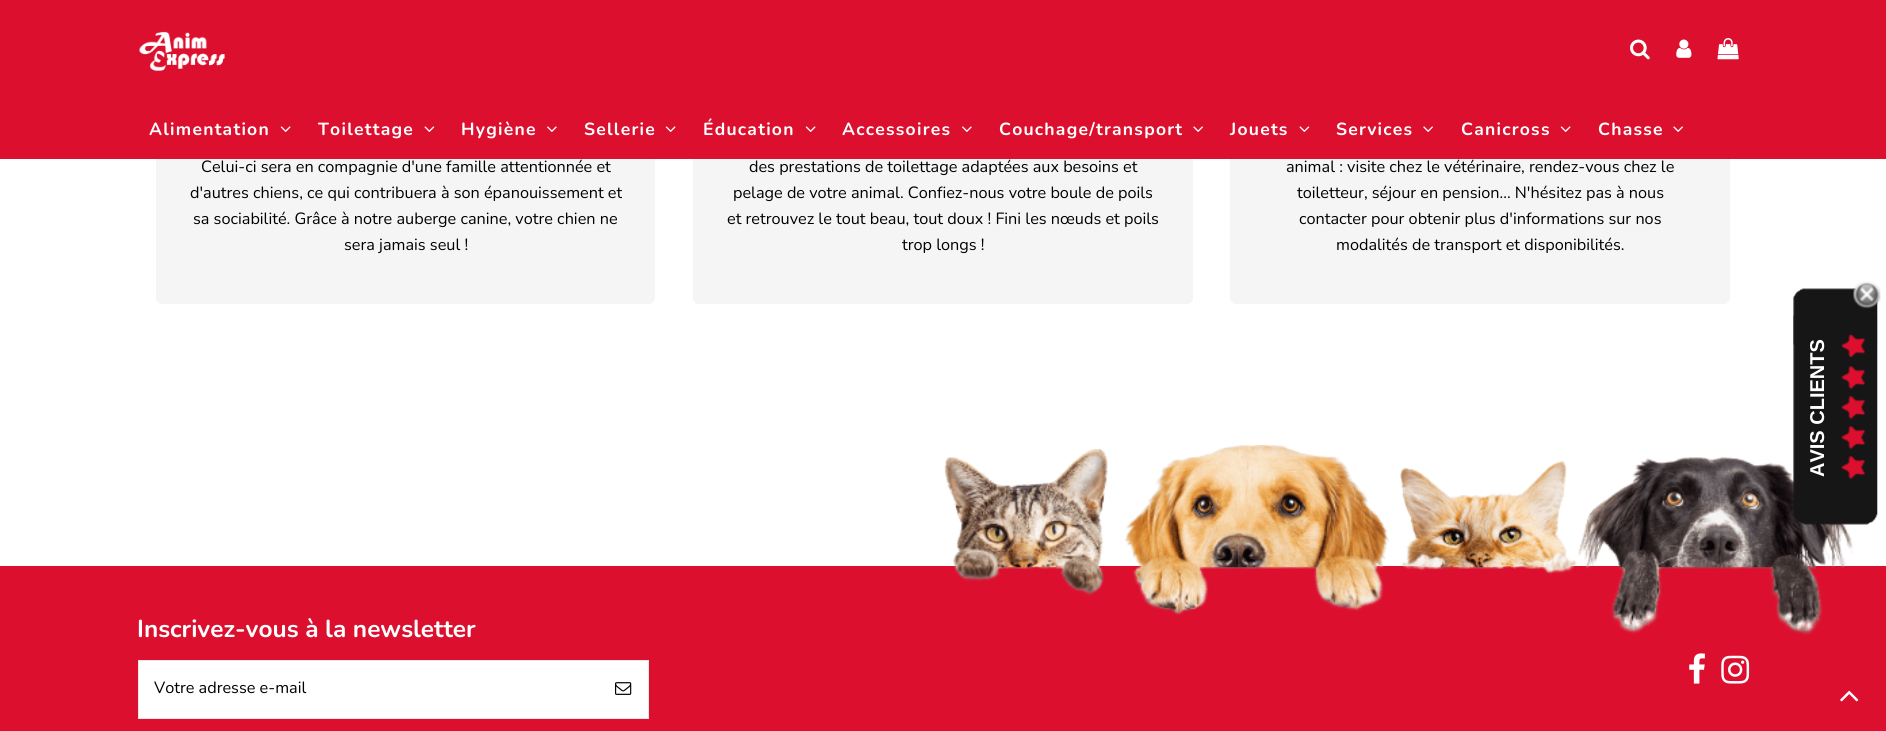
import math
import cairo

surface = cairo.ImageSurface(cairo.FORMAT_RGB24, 1886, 731)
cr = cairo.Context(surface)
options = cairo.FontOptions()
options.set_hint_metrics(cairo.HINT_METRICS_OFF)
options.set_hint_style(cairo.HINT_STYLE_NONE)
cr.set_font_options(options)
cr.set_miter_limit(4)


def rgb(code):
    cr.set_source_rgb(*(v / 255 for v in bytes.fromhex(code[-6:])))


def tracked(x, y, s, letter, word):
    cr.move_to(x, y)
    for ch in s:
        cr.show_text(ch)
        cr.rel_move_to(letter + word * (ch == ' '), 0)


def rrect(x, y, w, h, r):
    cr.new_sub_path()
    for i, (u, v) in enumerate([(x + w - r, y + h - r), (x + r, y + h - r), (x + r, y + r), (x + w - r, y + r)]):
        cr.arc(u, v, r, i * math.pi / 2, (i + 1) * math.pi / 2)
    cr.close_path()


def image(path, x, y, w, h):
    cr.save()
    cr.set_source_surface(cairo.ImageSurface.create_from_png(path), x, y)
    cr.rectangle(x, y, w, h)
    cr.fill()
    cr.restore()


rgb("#ffffff")
cr.paint()
rgb("#f5f5f5")
rrect(156, -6, 499, 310, 6)
cr.fill()
rrect(693, -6, 500, 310, 6)
cr.fill()
rrect(1230, -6, 500, 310, 6)
cr.fill()
rgb("#dc0f2e")
cr.rectangle(0, 0, 1886, 159)
cr.fill()
image("img/1.png", 138, 31, 87, 40)
image("img/2.png", 1630, 39, 20, 21)
image("img/3.png", 1676, 39, 16, 19)
image("img/4.png", 1717, 38, 22, 22)
image("img/5.png", 280, 126, 11, 6)
image("img/6.png", 424, 126, 11, 6)
image("img/7.png", 547, 126, 10, 6)
image("img/5.png", 665, 126, 11, 6)
image("img/5.png", 805, 126, 11, 6)
image("img/7.png", 962, 126, 10, 6)
image("img/8.png", 1193, 126, 10, 6)
image("img/6.png", 1299, 126, 11, 6)
image("img/8.png", 1423, 126, 10, 6)
image("img/5.png", 1560, 126, 11, 6)
image("img/8.png", 1673, 126, 10, 6)
cr.rectangle(0, 566, 1886, 165)
cr.fill()
image("img/12.png", 944, 445, 909, 190)
image("img/10.png", 1793, 288, 85, 237)
image("img/9.png", 1853, 281, 28, 28)
image("img/11.png", 1841, 334, 24, 146)
rgb("#ffffff")
cr.rectangle(138.5, 660.5, 510, 58)
cr.fill_preserve()
rgb("#e8e8e8")
cr.set_line_width(1)
cr.stroke()
image("img/13.png", 615, 682, 17, 13)
image("img/14.png", 1689, 653, 16, 31)
image("img/15.png", 1721, 655, 29, 29)
image("img/16.png", 1840, 690, 19, 12)
cr.select_font_face("Nunito", cairo.FONT_SLANT_NORMAL, cairo.FONT_WEIGHT_BOLD)
cr.set_font_size(17.5)
rgb("#ffffff")
for x, y, s in [
    (149, 135, "Alimentation"),
    (318, 135, "Toilettage"),
    (461, 135, "Hygiène"),
    (584, 135, "Sellerie"),
    (703, 135, "Éducation"),
    (842, 135, "Accessoires"),
    (999, 135, "Couchage/transport"),
    (1230, 135, "Jouets"),
    (1336, 135, "Services"),
    (1461, 135, "Canicross"),
    (1598, 135, "Chasse"),
]:
    tracked(x, y, s, 1.25, 0)
cr.select_font_face("Nunito")
cr.set_font_size(16.25)
rgb("#000000")
for x, y, s in [
    (201, 172, "Celui-ci sera en compagnie d'une famille attentionnée et"),
    (190, 198, "d'autres chiens, ce qui contribuera à son épanouissement et"),
    (193, 224, "sa sociabilité. Grâce à notre auberge canine, votre chien ne"),
    (344, 250, "sera jamais seul !"),
    (749, 172, "des prestations de toilettage adaptées aux besoins et"),
    (733, 198, "pelage de votre animal. Confiez-nous votre boule de poils"),
    (727, 224, "et retrouvez le tout beau, tout doux ! Fini les nœuds et poils"),
    (902, 250, "trop longs !"),
    (1286, 172, "animal : visite chez le vétérinaire, rendez-vous chez le"),
    (1297, 198, "toiletteur, séjour en pension... N'hésitez pas à nous"),
    (1299, 224, "contacter pour obtenir plus d'informations sur nos"),
    (1336, 250, "modalités de transport et disponibilités."),
]:
    cr.move_to(x, y)
    cr.show_text(s)
cr.select_font_face("Liberation Sans", cairo.FONT_SLANT_NORMAL, cairo.FONT_WEIGHT_BOLD)
cr.set_font_size(20)
rgb("#ffffff")
cr.save()
cr.translate(1824, 477)
cr.rotate(-90 * math.pi / 180)
cr.move_to(0, 0)
cr.show_text("AVIS CLIENTS")
cr.restore()
cr.select_font_face("Nunito", cairo.FONT_SLANT_NORMAL, cairo.FONT_WEIGHT_BOLD)
cr.set_font_size(24.4)
cr.move_to(137, 637)
cr.show_text("Inscrivez-vous à la newsletter")
cr.select_font_face("Nunito")
cr.set_font_size(16.25)
rgb("#000000")
cr.move_to(154, 693)
cr.show_text("Votre adresse e-mail")
surface.write_to_png("page.png")
